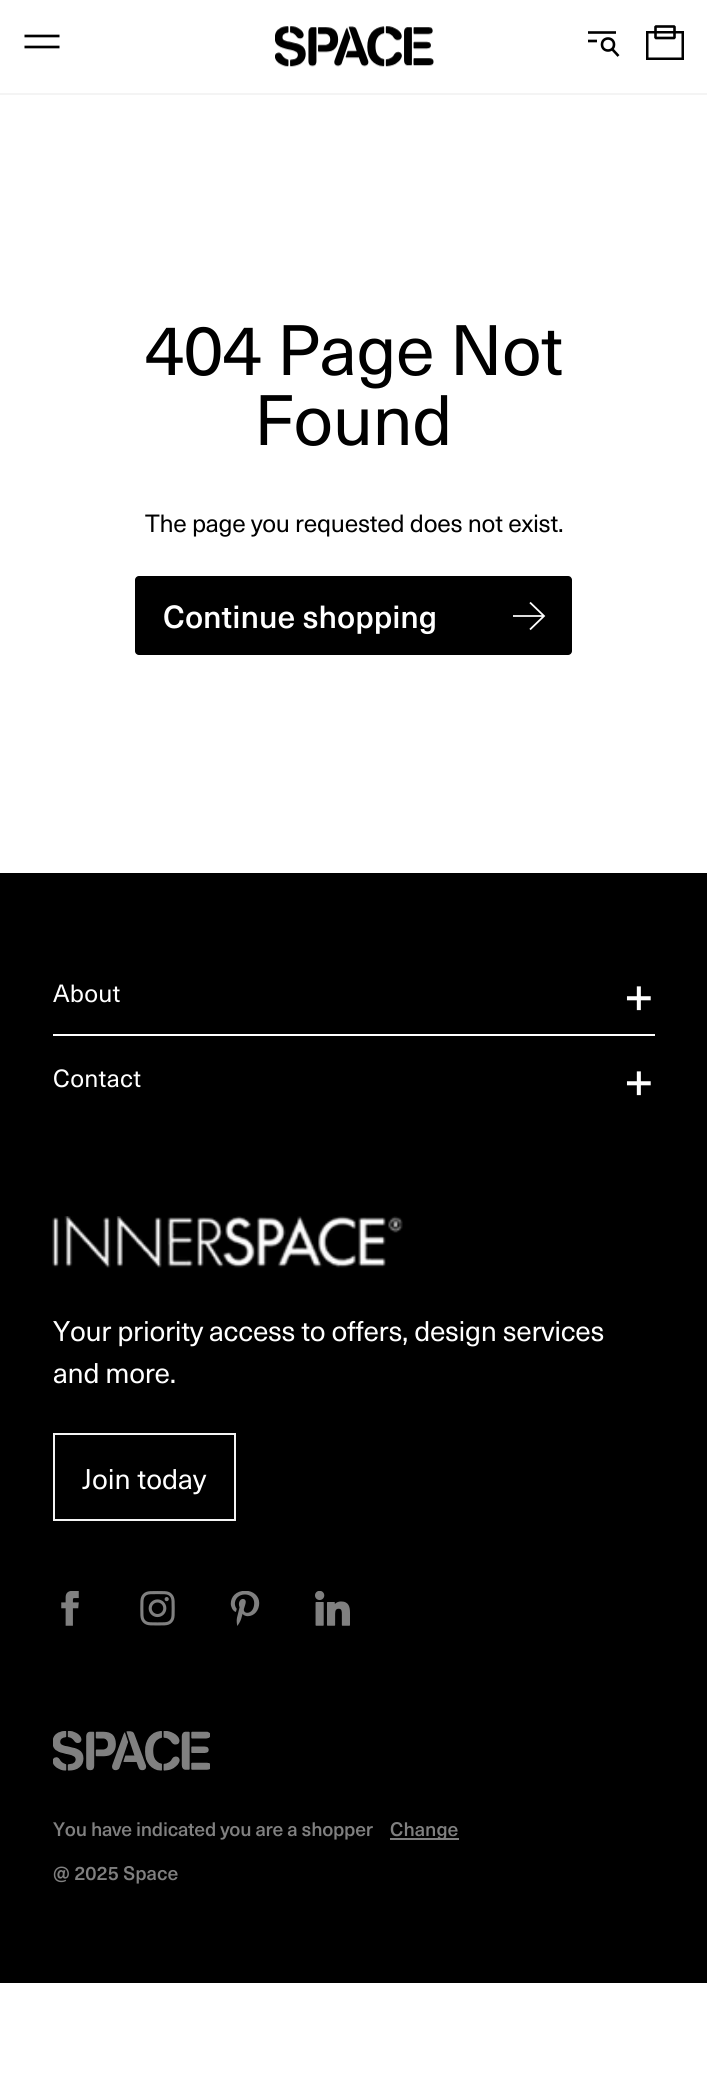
import math
import cairo

surface = cairo.ImageSurface(cairo.FORMAT_RGB24, 707, 2086)
cr = cairo.Context(surface)
options = cairo.FontOptions()
options.set_hint_metrics(cairo.HINT_METRICS_OFF)
options.set_hint_style(cairo.HINT_STYLE_NONE)
cr.set_font_options(options)
cr.set_miter_limit(4)


def rgb(code):
    cr.set_source_rgb(*(v / 255 for v in bytes.fromhex(code[-6:])))


def tracked(x, y, s, letter, word):
    cr.move_to(x, y)
    for ch in s:
        cr.show_text(ch)
        cr.rel_move_to(letter + word * (ch == ' '), 0)


def rrect(x, y, w, h, r):
    cr.new_sub_path()
    for i, (u, v) in enumerate([(x + w - r, y + h - r), (x + r, y + h - r), (x + r, y + r), (x + w - r, y + r)]):
        cr.arc(u, v, r, i * math.pi / 2, (i + 1) * math.pi / 2)
    cr.close_path()


def image(path, x, y, w, h):
    cr.save()
    cr.set_source_surface(cairo.ImageSurface.create_from_png(path), x, y)
    cr.rectangle(x, y, w, h)
    cr.fill()
    cr.restore()


rgb("#ffffff")
cr.paint()
rgb("#f4f4f4")
cr.rectangle(0, 93, 707, 2)
cr.fill()
cr.new_path()
cr.move_to(24.5, 36)
cr.line_to(59.5, 36)
cr.move_to(24.5, 47)
cr.line_to(59.5, 47)
rgb("#000000")
cr.set_line_width(2.6)
cr.set_line_join(cairo.LINE_JOIN_BEVEL)
cr.stroke()
image("img/1.png", 275, 26, 159, 41)
cr.new_path()
cr.move_to(616, 32.5)
cr.line_to(588, 32.5)
cr.move_to(597, 41)
cr.line_to(588, 41)
cr.move_to(618.5, 56)
cr.line_to(612.5, 49.5)
cr.move_to(614, 44.5)
cr.curve_to(614, 52.5, 602, 52.5, 602, 44.5)
cr.curve_to(602, 36.5, 614, 36.5, 614, 44.5)
cr.close_path()
cr.stroke()
cr.rectangle(647.25, 32.25, 35.5, 26.5)
cr.set_line_width(2.5)
cr.set_line_join(cairo.LINE_JOIN_MITER)
cr.stroke()
cr.new_path()
cr.move_to(655.5, 38)
cr.line_to(655.5, 26.5)
cr.line_to(674.5, 26.5)
cr.line_to(674.5, 38)
cr.close_path()
cr.set_line_width(2.6)
cr.set_line_join(cairo.LINE_JOIN_BEVEL)
cr.stroke()
rrect(135, 576, 437, 79, 4)
cr.fill()
cr.new_path()
cr.move_to(513, 616)
cr.line_to(544, 616)
cr.move_to(530, 629.5)
cr.line_to(544, 616)
cr.line_to(530, 602.5)
rgb("#ffffff")
cr.set_line_width(1.8)
cr.set_line_join(cairo.LINE_JOIN_MITER)
cr.stroke()
rgb("#000000")
cr.rectangle(0, 873, 707, 1110)
cr.fill()
rgb("#ffffff")
cr.rectangle(53, 1034, 602, 2)
cr.fill()
image("img/2.png", 52, 1216, 351, 52)
cr.rectangle(54, 1434, 181, 86)
rgb("#f4f4f4")
cr.set_line_width(2)
cr.stroke()
image("img/3.png", 61, 1591, 18, 35)
image("img/4.png", 140, 1591, 35, 35)
image("img/5.png", 230, 1591, 30, 35)
image("img/6.png", 315, 1591, 35, 35)
image("img/7.png", 53, 1731, 157, 40)
rgb("#808080")
cr.rectangle(390, 1838, 69, 2)
cr.fill()
cr.select_font_face("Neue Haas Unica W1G")
cr.set_font_size(70)
rgb("#000000")
tracked(145, 375, "404 Page Not", -0.5, 0)
tracked(254, 445, "Found", -0.5, 0)
cr.set_font_size(24.5)
tracked(145, 532, "The page you requested does not exist.", -0.25, 0)
cr.select_font_face("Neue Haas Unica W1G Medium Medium")
cr.set_font_size(31.5)
rgb("#ffffff")
cr.move_to(163, 628)
cr.show_text("Continue shopping")
cr.select_font_face("Neue Haas Unica W1G")
cr.set_font_size(24.5)
tracked(53, 1002, "About", 0.25, 0)
cr.set_font_size(56)
cr.move_to(623, 1016)
cr.show_text("+")
cr.set_font_size(24.5)
tracked(53, 1087, "Contact", 0.25, 0)
cr.set_font_size(56)
cr.move_to(623, 1101)
cr.show_text("+")
cr.set_font_size(28)
tracked(53, 1341, "Your priority access to offers, design services", -0.3, 0)
tracked(53, 1383, "and more.", -0.3, 0)
cr.move_to(82, 1489)
cr.show_text("Join today")
cr.select_font_face("Neue Haas Unica W1G Medium Medium")
cr.set_font_size(19.25)
rgb("#808080")
tracked(53, 1836, "You have indicated you are a shopper", -0.25, 0)
cr.move_to(390, 1836)
cr.show_text("Change")
cr.move_to(53, 1880)
cr.show_text("@ 2025 Space")
surface.write_to_png("page.png")
